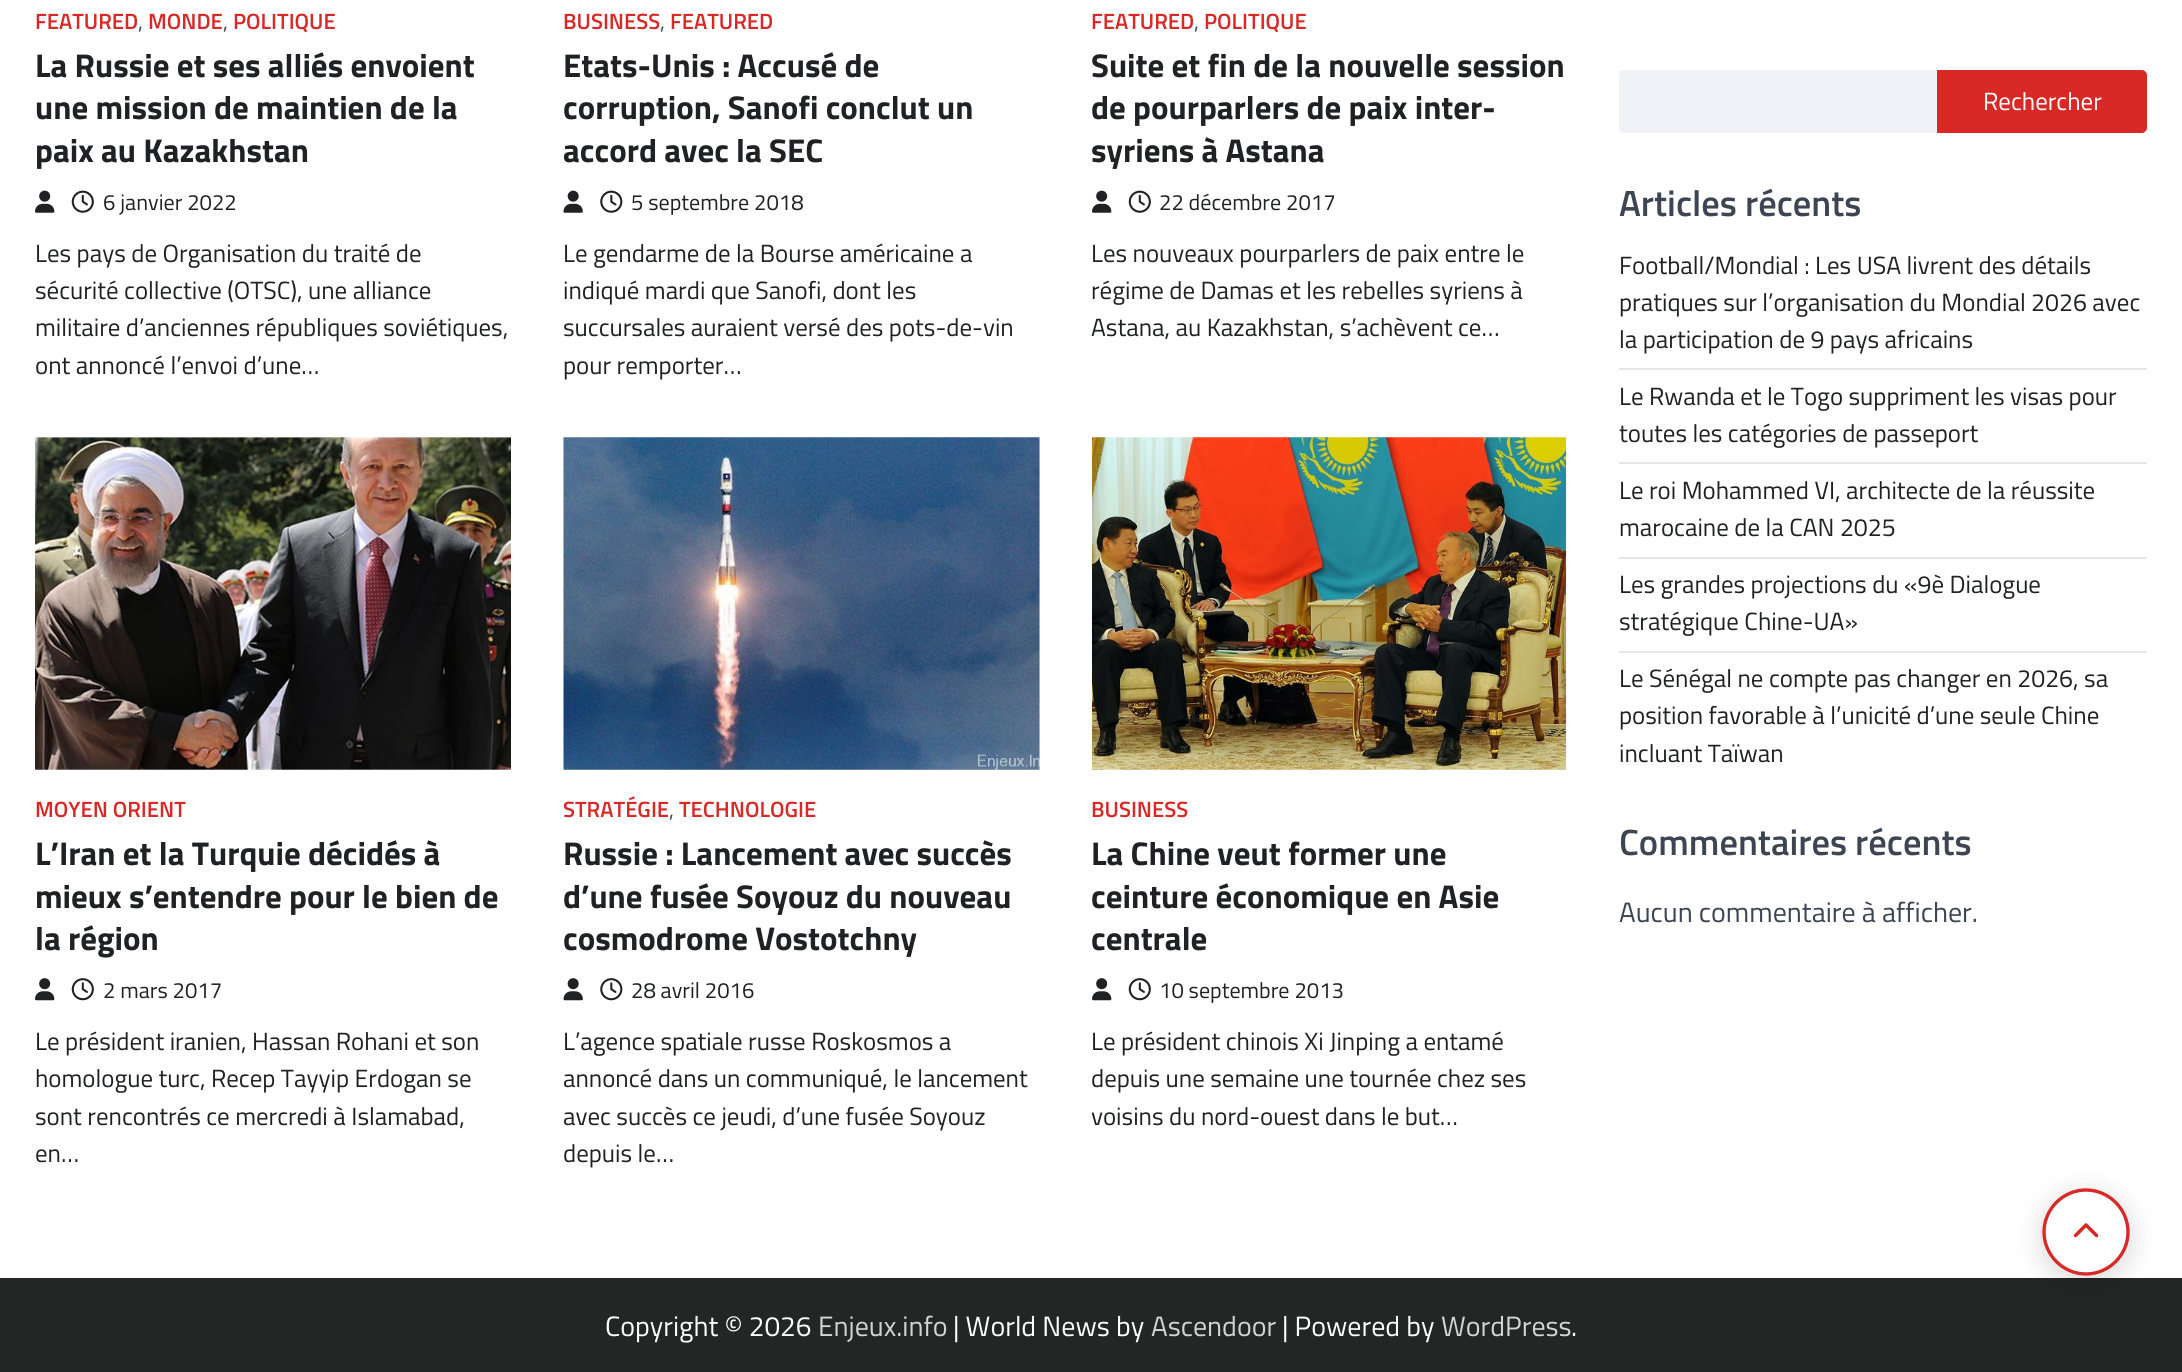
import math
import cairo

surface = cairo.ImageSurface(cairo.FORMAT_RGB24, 2182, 1372)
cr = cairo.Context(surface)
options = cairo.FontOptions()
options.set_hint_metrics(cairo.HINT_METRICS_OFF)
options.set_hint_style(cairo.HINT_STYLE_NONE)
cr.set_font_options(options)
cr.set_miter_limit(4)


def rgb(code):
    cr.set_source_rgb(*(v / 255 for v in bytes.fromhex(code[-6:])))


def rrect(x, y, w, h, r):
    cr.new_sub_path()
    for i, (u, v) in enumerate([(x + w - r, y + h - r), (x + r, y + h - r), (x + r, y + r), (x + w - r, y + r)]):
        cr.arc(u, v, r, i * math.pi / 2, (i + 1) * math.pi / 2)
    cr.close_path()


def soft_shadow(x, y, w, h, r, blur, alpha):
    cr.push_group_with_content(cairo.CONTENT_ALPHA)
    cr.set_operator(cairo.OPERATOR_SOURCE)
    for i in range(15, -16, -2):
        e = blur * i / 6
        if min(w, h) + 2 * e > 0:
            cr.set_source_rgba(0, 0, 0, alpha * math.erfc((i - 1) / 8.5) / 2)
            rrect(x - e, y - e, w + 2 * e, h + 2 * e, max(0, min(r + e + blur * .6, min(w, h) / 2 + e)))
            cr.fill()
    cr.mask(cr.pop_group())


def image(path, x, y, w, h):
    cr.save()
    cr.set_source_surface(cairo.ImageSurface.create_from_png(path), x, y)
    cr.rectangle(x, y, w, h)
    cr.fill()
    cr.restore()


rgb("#ffffff")
cr.paint()
image("img/1.png", 35, 190, 20, 23)
image("img/2.png", 71, 190, 23, 23)
image("img/3.png", 563, 190, 20, 23)
image("img/4.png", 600, 190, 23, 23)
image("img/1.png", 1092, 190, 20, 23)
image("img/2.png", 1128, 190, 23, 23)
image("img/5.png", 35, 437, 476, 333)
image("img/6.png", 35, 978, 20, 23)
image("img/7.png", 71, 978, 23, 23)
rgb("#f0f2f7")
cr.rectangle(564, 438, 476, 332)
cr.fill()
image("img/8.png", 563, 437, 477, 333)
image("img/9.png", 563, 978, 20, 23)
image("img/10.png", 600, 978, 23, 23)
image("img/11.png", 1092, 437, 475, 333)
image("img/6.png", 1092, 978, 20, 23)
image("img/7.png", 1128, 978, 23, 23)
cr.new_path()
cr.move_to(1624, 70)
cr.line_to(1937, 70)
cr.line_to(1937, 133)
cr.line_to(1624, 133)
cr.curve_to(1621, 133, 1619, 131, 1619, 128)
cr.line_to(1619, 75)
cr.curve_to(1619, 72, 1621, 70, 1624, 70)
cr.close_path()
cr.fill()
rgb("#d82926")
cr.new_path()
cr.move_to(1938, 71)
cr.line_to(2142, 71)
cr.curve_to(2144, 71, 2146, 73, 2146, 75)
cr.line_to(2146, 128)
cr.curve_to(2146, 130, 2144, 132, 2142, 132)
cr.line_to(1938, 132)
cr.close_path()
cr.fill_preserve()
cr.stroke()
for x, y, w, h, color in [
    (1619, 368, 528, 2, "#e6e6e6"),
    (1619, 462, 528, 2, "#e6e6e6"),
    (1619, 557, 528, 2, "#e6e6e6"),
    (1619, 651, 528, 2, "#e6e6e6"),
    (0, 1278, 2182, 94, "#242525"),
]:
    rgb(color)
    cr.rectangle(x, y, w, h)
    cr.fill()
rgb("#000000")
soft_shadow(2042, 1194, 88, 87, 43.5, 14, 0.15)
rgb("#ffffff")
cr.arc(2086, 1232, 44, 0, 2 * math.pi)
cr.fill()
image("img/12.png", 2073, 1223, 26, 15)
cr.new_path()
cr.move_to(2086, 1190)
cr.curve_to(2109, 1190, 2128, 1209, 2128, 1232)
cr.curve_to(2128, 1255, 2109, 1274, 2086, 1274)
cr.curve_to(2063, 1274, 2044, 1255, 2044, 1232)
cr.curve_to(2044, 1209, 2063, 1190, 2086, 1190)
rgb("#d82926")
cr.set_line_width(3.4)
cr.stroke()
cr.select_font_face("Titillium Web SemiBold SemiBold")
cr.set_font_size(22.1)
cr.move_to(35, 29)
cr.show_text("FEATURED")
cr.select_font_face("Titillium Web")
rgb("#3d4452")
cr.move_to(138, 29)
cr.show_text(",")
cr.select_font_face("Titillium Web SemiBold SemiBold")
rgb("#d82926")
cr.move_to(148, 29)
cr.show_text("MONDE")
cr.select_font_face("Titillium Web")
rgb("#3d4452")
cr.move_to(223, 29)
cr.show_text(",")
cr.select_font_face("Titillium Web SemiBold SemiBold")
rgb("#d82926")
cr.move_to(233, 29)
cr.show_text("POLITIQUE")
cr.select_font_face("Titillium Web", cairo.FONT_SLANT_NORMAL, cairo.FONT_WEIGHT_BOLD)
cr.set_font_size(32.9)
rgb("#202124")
for x, y, s in [
    (35, 77, "La Russie et ses alliés envoient"),
    (35, 119, "une mission de maintien de la"),
    (35, 162, "paix au Kazakhstan"),
]:
    cr.move_to(x, y)
    cr.show_text(s)
cr.select_font_face("Titillium Web")
cr.set_font_size(22.1)
cr.move_to(103, 210)
cr.show_text("6 janvier 2022")
cr.set_font_size(24.9)
for x, y, s in [
    (35, 262, "Les pays de Organisation du traité de"),
    (35, 299, "sécurité collective (OTSC), une alliance"),
    (35, 336, "militaire d’anciennes républiques soviétiques,"),
    (35, 374, "ont annoncé l’envoi d’une…"),
]:
    cr.move_to(x, y)
    cr.show_text(s)
cr.select_font_face("Titillium Web SemiBold SemiBold")
cr.set_font_size(22.1)
rgb("#d82926")
cr.move_to(563, 29)
cr.show_text("BUSINESS")
cr.select_font_face("Titillium Web")
rgb("#3d4452")
cr.move_to(660, 29)
cr.show_text(",")
cr.select_font_face("Titillium Web SemiBold SemiBold")
rgb("#d82926")
cr.move_to(670, 29)
cr.show_text("FEATURED")
cr.select_font_face("Titillium Web", cairo.FONT_SLANT_NORMAL, cairo.FONT_WEIGHT_BOLD)
cr.set_font_size(32.9)
rgb("#202124")
for x, y, s in [
    (563, 77, "Etats-Unis : Accusé de"),
    (563, 119, "corruption, Sanofi conclut un"),
    (563, 162, "accord avec la SEC"),
]:
    cr.move_to(x, y)
    cr.show_text(s)
cr.select_font_face("Titillium Web")
cr.set_font_size(22.1)
cr.move_to(631, 210)
cr.show_text("5 septembre 2018")
cr.set_font_size(24.9)
for x, y, s in [
    (563, 262, "Le gendarme de la Bourse américaine a"),
    (563, 299, "indiqué mardi que Sanofi, dont les"),
    (563, 336, "succursales auraient versé des pots-de-vin"),
    (563, 374, "pour remporter…"),
]:
    cr.move_to(x, y)
    cr.show_text(s)
cr.select_font_face("Titillium Web SemiBold SemiBold")
cr.set_font_size(22.1)
rgb("#d82926")
cr.move_to(1091, 29)
cr.show_text("FEATURED")
cr.select_font_face("Titillium Web")
rgb("#3d4452")
cr.move_to(1194, 29)
cr.show_text(",")
cr.select_font_face("Titillium Web SemiBold SemiBold")
rgb("#d82926")
cr.move_to(1204, 29)
cr.show_text("POLITIQUE")
cr.select_font_face("Titillium Web", cairo.FONT_SLANT_NORMAL, cairo.FONT_WEIGHT_BOLD)
cr.set_font_size(32.9)
rgb("#202124")
for x, y, s in [
    (1091, 77, "Suite et fin de la nouvelle session"),
    (1091, 119, "de pourparlers de paix inter-"),
    (1091, 162, "syriens à Astana"),
]:
    cr.move_to(x, y)
    cr.show_text(s)
cr.select_font_face("Titillium Web")
cr.set_font_size(22.1)
cr.move_to(1159, 210)
cr.show_text("22 décembre 2017")
cr.set_font_size(24.9)
for x, y, s in [
    (1091, 262, "Les nouveaux pourparlers de paix entre le"),
    (1091, 299, "régime de Damas et les rebelles syriens à"),
    (1091, 336, "Astana, au Kazakhstan, s’achèvent ce…"),
]:
    cr.move_to(x, y)
    cr.show_text(s)
cr.select_font_face("Titillium Web SemiBold SemiBold")
cr.set_font_size(22.1)
rgb("#d82926")
cr.move_to(35, 817)
cr.show_text("MOYEN ORIENT")
cr.select_font_face("Titillium Web", cairo.FONT_SLANT_NORMAL, cairo.FONT_WEIGHT_BOLD)
cr.set_font_size(32.9)
rgb("#202124")
for x, y, s in [
    (35, 865, "L’Iran et la Turquie décidés à"),
    (35, 908, "mieux s’entendre pour le bien de"),
    (35, 950, "la région"),
]:
    cr.move_to(x, y)
    cr.show_text(s)
cr.select_font_face("Titillium Web")
cr.set_font_size(22.1)
cr.move_to(103, 998)
cr.show_text("2 mars 2017")
cr.set_font_size(24.9)
for x, y, s in [
    (35, 1050, "Le président iranien, Hassan Rohani et son"),
    (35, 1087, "homologue turc, Recep Tayyip Erdogan se"),
    (35, 1125, "sont rencontrés ce mercredi à Islamabad,"),
    (35, 1162, "en…"),
]:
    cr.move_to(x, y)
    cr.show_text(s)
cr.select_font_face("Titillium Web SemiBold SemiBold")
cr.set_font_size(22.1)
rgb("#d82926")
cr.move_to(563, 817)
cr.show_text("STRATÉGIE")
cr.select_font_face("Titillium Web")
rgb("#3d4452")
cr.move_to(669, 817)
cr.show_text(",")
cr.select_font_face("Titillium Web SemiBold SemiBold")
rgb("#d82926")
cr.move_to(679, 817)
cr.show_text("TECHNOLOGIE")
cr.select_font_face("Titillium Web", cairo.FONT_SLANT_NORMAL, cairo.FONT_WEIGHT_BOLD)
cr.set_font_size(32.9)
rgb("#202124")
for x, y, s in [
    (563, 865, "Russie : Lancement avec succès"),
    (563, 908, "d’une fusée Soyouz du nouveau"),
    (563, 950, "cosmodrome Vostotchny"),
]:
    cr.move_to(x, y)
    cr.show_text(s)
cr.select_font_face("Titillium Web")
cr.set_font_size(22.1)
cr.move_to(631, 998)
cr.show_text("28 avril 2016")
cr.set_font_size(24.9)
for x, y, s in [
    (563, 1050, "L’agence spatiale russe Roskosmos a"),
    (563, 1087, "annoncé dans un communiqué, le lancement"),
    (563, 1125, "avec succès ce jeudi, d’une fusée Soyouz"),
    (563, 1162, "depuis le…"),
]:
    cr.move_to(x, y)
    cr.show_text(s)
cr.select_font_face("Titillium Web SemiBold SemiBold")
cr.set_font_size(22.1)
rgb("#d82926")
cr.move_to(1091, 817)
cr.show_text("BUSINESS")
cr.select_font_face("Titillium Web", cairo.FONT_SLANT_NORMAL, cairo.FONT_WEIGHT_BOLD)
cr.set_font_size(32.9)
rgb("#202124")
for x, y, s in [
    (1091, 865, "La Chine veut former une"),
    (1091, 908, "ceinture économique en Asie"),
    (1091, 950, "centrale"),
]:
    cr.move_to(x, y)
    cr.show_text(s)
cr.select_font_face("Titillium Web")
cr.set_font_size(22.1)
cr.move_to(1159, 998)
cr.show_text("10 septembre 2013")
cr.set_font_size(24.9)
for x, y, s in [
    (1091, 1050, "Le président chinois Xi Jinping a entamé"),
    (1091, 1087, "depuis une semaine une tournée chez ses"),
    (1091, 1125, "voisins du nord-ouest dans le but…"),
]:
    cr.move_to(x, y)
    cr.show_text(s)
rgb("#ffffff")
cr.move_to(1983, 110)
cr.show_text("Rechercher")
cr.select_font_face("Titillium Web SemiBold SemiBold")
cr.set_font_size(36.5)
rgb("#3d4452")
cr.move_to(1619, 216)
cr.show_text("Articles récents")
cr.select_font_face("Titillium Web")
cr.set_font_size(24.9)
rgb("#202124")
for x, y, s in [
    (1619, 274, "Football/Mondial : Les USA livrent des détails"),
    (1619, 311, "pratiques sur l’organisation du Mondial 2026 avec"),
    (1619, 348, "la participation de 9 pays africains"),
    (1619, 405, "Le Rwanda et le Togo suppriment les visas pour"),
    (1619, 442, "toutes les catégories de passeport"),
    (1619, 499, "Le roi Mohammed VI, architecte de la réussite"),
    (1619, 536, "marocaine de la CAN 2025"),
    (1619, 593, "Les grandes projections du «9è Dialogue"),
    (1619, 630, "stratégique Chine-UA»"),
    (1619, 687, "Le Sénégal ne compte pas changer en 2026, sa"),
    (1619, 724, "position favorable à l’unicité d’une seule Chine"),
    (1619, 762, "incluant Taïwan"),
]:
    cr.move_to(x, y)
    cr.show_text(s)
cr.select_font_face("Titillium Web SemiBold SemiBold")
cr.set_font_size(36.5)
rgb("#3d4452")
cr.move_to(1619, 855)
cr.show_text("Commentaires récents")
cr.select_font_face("Titillium Web")
cr.set_font_size(28)
cr.move_to(1619, 922)
cr.show_text("Aucun commentaire à afficher.")
rgb("#ffffff")
cr.move_to(605, 1336)
cr.show_text("Copyright © 2026")
rgb("#d3d3d3")
cr.move_to(818, 1336)
cr.show_text("Enjeux.info")
rgb("#ffffff")
cr.move_to(953, 1336)
cr.show_text("| World News by")
rgb("#d3d3d3")
cr.move_to(1151, 1336)
cr.show_text("Ascendoor")
rgb("#ffffff")
cr.move_to(1282, 1336)
cr.show_text("| Powered by")
rgb("#d3d3d3")
cr.move_to(1441, 1336)
cr.show_text("WordPress")
rgb("#ffffff")
cr.move_to(1571, 1336)
cr.show_text(".")
surface.write_to_png("page.png")
